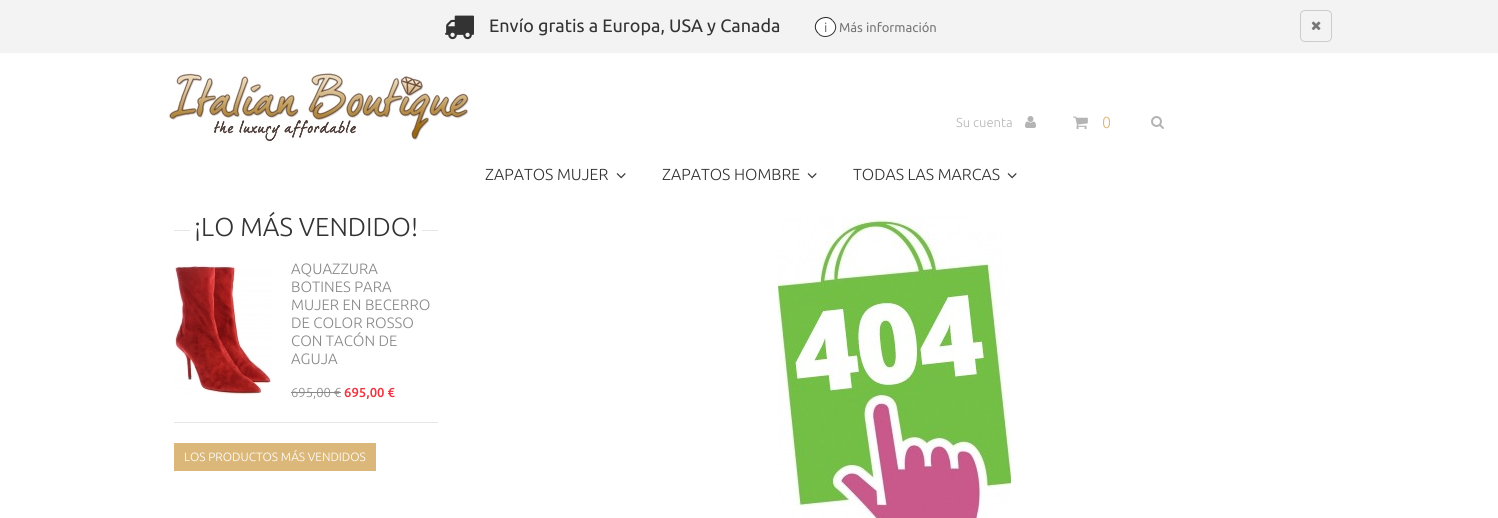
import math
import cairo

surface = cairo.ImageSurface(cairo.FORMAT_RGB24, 1498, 518)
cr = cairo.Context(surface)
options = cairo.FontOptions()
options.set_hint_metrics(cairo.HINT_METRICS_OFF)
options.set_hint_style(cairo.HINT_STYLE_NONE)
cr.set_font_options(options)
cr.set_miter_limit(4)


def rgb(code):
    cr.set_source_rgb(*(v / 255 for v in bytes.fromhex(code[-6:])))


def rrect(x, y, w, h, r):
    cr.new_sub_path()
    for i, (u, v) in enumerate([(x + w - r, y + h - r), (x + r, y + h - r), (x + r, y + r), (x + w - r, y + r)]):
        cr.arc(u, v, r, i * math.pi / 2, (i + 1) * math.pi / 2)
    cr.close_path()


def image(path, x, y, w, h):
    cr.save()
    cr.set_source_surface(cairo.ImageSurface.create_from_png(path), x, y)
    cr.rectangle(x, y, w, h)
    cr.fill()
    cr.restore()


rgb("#ffffff")
cr.paint()
rgb("#f3f3f3")
cr.rectangle(0, 0, 1498, 53)
cr.fill()
image("img/1.png", 445, 15, 29, 25)
rgb("#ffffff")
rrect(815, 17, 21, 20, 10)
cr.fill()
cr.new_path()
cr.move_to(832.5, 20.5)
cr.curve_to(839.5, 27, 834, 36.5, 825, 36.5)
cr.curve_to(822.5, 36.5, 820, 35.5, 818.5, 33.5)
rgb("#333333")
cr.set_line_width(1)
cr.stroke()
cr.new_path()
cr.move_to(818.5, 33.5)
cr.curve_to(811.5, 27, 817, 17.5, 826, 17.5)
cr.curve_to(828.5, 17.5, 831, 18.5, 832.5, 20.5)
rgb("#222222")
cr.stroke()
rrect(1300.5, 10.5, 31, 31, 4.5)
rgb("#cccccc")
cr.stroke()
image("img/2.png", 1311, 21, 10, 10)
image("img/3.png", 169, 73, 300, 69)
image("img/4.png", 1025, 116, 11, 12)
image("img/5.png", 1073, 116, 15, 14)
image("img/6.png", 1151, 116, 13, 13)
image("img/7.png", 616, 173, 10, 6)
image("img/7.png", 807, 173, 10, 6)
image("img/7.png", 1007, 173, 10, 6)
for x, y, w, h, color in [
    (174, 230, 264, 1, "#e7e7e6"),
    (190, 230, 232, 1, "#ffffff"),
    (174, 422, 264, 1, "#e7e7e6"),
]:
    rgb(color)
    cr.rectangle(x, y, w, h)
    cr.fill()
image("img/8.png", 174, 260, 98, 140)
rgb("#888888")
cr.rectangle(291, 392, 50, 1)
cr.fill()
rgb("#dbb879")
cr.rectangle(174, 443, 202, 28)
cr.fill()
image("img/9.png", 778, 217, 233, 301)
cr.select_font_face("Ubuntu")
cr.set_font_size(18)
rgb("#333333")
cr.move_to(489, 32)
cr.show_text("Envío gratis a Europa, USA y Canada")
cr.set_font_size(13)
rgb("#777777")
cr.move_to(824, 32)
cr.show_text("i")
cr.move_to(839, 32)
cr.show_text("Más información")
cr.select_font_face("Ubuntu Light")
rgb("#b4b4b4")
cr.move_to(956, 127)
cr.show_text("Su cuenta")
cr.set_font_size(16)
rgb("#dbb879")
cr.move_to(1102, 128)
cr.show_text("0")
rgb("#333333")
for x, y, s in [
    (485, 180, "ZAPATOS MUJER"),
    (662, 180, "ZAPATOS HOMBRE"),
    (853, 180, "TODAS LAS MARCAS"),
]:
    cr.move_to(x, y)
    cr.show_text(s)
cr.set_font_size(26)
cr.move_to(194, 236)
cr.show_text("¡LO MÁS VENDIDO!")
cr.set_font_size(15)
rgb("#888888")
for x, y, s in [
    (291, 274, "AQUAZZURA"),
    (291, 292, "BOTINES PARA"),
    (291, 310, "MUJER EN BECERRO"),
    (291, 328, "DE COLOR ROSSO"),
    (291, 346, "CON TACÓN DE"),
    (291, 364, "AGUJA"),
]:
    cr.move_to(x, y)
    cr.show_text(s)
cr.set_font_size(13)
cr.move_to(291, 397)
cr.show_text("695,00 €")
cr.select_font_face("Ubuntu Medium")
rgb("#f13340")
cr.move_to(344, 397)
cr.show_text("695,00 €")
cr.select_font_face("Ubuntu Light")
cr.set_font_size(12)
rgb("#ffffff")
cr.move_to(184, 461)
cr.show_text("LOS PRODUCTOS MÁS VENDIDOS")
surface.write_to_png("page.png")
